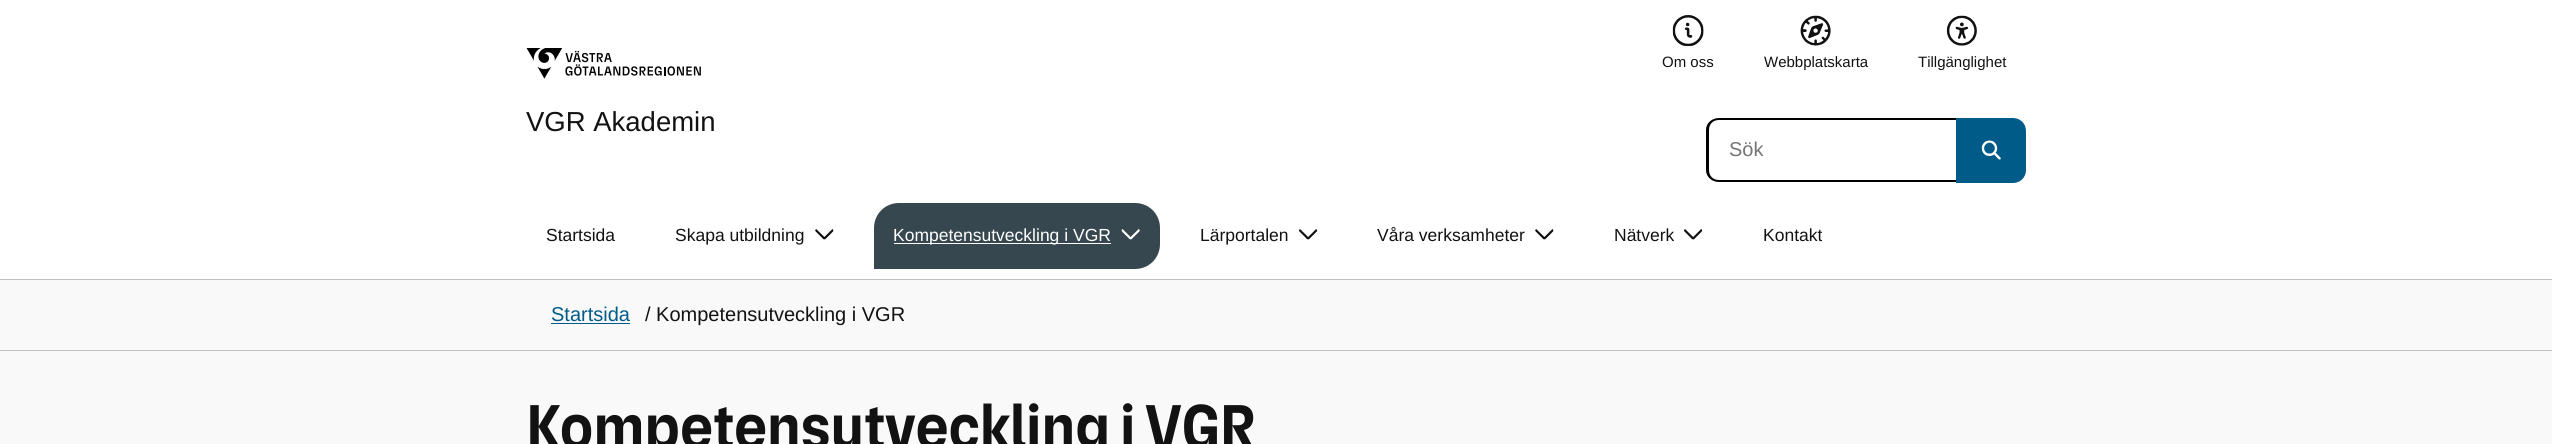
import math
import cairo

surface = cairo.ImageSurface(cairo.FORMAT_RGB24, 2552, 444)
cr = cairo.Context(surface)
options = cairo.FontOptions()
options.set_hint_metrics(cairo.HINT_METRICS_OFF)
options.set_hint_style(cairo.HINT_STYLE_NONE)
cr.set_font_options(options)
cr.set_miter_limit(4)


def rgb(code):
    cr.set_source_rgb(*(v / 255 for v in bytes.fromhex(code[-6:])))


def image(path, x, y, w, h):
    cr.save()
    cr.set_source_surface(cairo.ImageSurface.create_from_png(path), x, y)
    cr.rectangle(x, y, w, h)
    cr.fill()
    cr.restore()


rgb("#faf9f9")
cr.paint()
rgb("#ffffff")
cr.rectangle(0, 0, 2552, 279)
cr.fill()
image("img/1.png", 526, 48, 175, 31)
image("img/2.png", 1672, 15, 32, 31)
image("img/3.png", 1800, 15, 31, 31)
image("img/4.png", 1946, 15, 31, 31)
rgb("#000000")
cr.set_fill_rule(cairo.FILL_RULE_EVEN_ODD)
cr.new_path()
cr.move_to(1719, 118)
cr.line_to(1956, 118)
cr.line_to(1956, 182)
cr.line_to(1719, 182)
cr.curve_to(1712, 182, 1706, 177, 1706, 170)
cr.line_to(1706, 130)
cr.curve_to(1706, 123, 1712, 118, 1719, 118)
cr.close_path()
cr.move_to(1719, 120)
cr.line_to(1956, 120)
cr.line_to(1956, 180)
cr.line_to(1719, 180)
cr.curve_to(1713, 180, 1709, 176, 1709, 170)
cr.line_to(1709, 130)
cr.curve_to(1709, 124, 1713, 120, 1719, 120)
cr.close_path()
cr.fill()
rgb("#005b89")
cr.new_path()
cr.move_to(1957.5, 119.5)
cr.line_to(2013, 119.5)
cr.curve_to(2019.5, 119.5, 2024.5, 124.5, 2024.5, 131)
cr.line_to(2024.5, 170)
cr.curve_to(2024.5, 176.5, 2019.5, 181.5, 2013, 181.5)
cr.line_to(1957.5, 181.5)
cr.close_path()
cr.fill_preserve()
cr.set_line_width(3)
cr.stroke()
image("img/5.png", 1981, 140, 20, 20)
image("img/6.png", 815, 229, 19, 11)
rgb("#37474f")
cr.new_path()
cr.move_to(899, 203)
cr.line_to(1135, 203)
cr.curve_to(1149, 203, 1160, 214, 1160, 228)
cr.line_to(1160, 244)
cr.curve_to(1160, 258, 1149, 269, 1135, 269)
cr.line_to(874, 269)
cr.line_to(874, 228)
cr.curve_to(874, 214, 885, 203, 899, 203)
cr.close_path()
cr.fill()
rgb("#ffffff")
cr.rectangle(894, 243, 217, 1)
cr.fill()
image("img/7.png", 1121, 229, 19, 11)
image("img/8.png", 1299, 229, 19, 11)
image("img/6.png", 1535, 229, 19, 11)
image("img/8.png", 1684, 229, 19, 11)
for x, y, w, h, color in [
    (0, 279, 2552, 1, "#c0bfbf"),
    (551, 323, 79, 1, "#005b89"),
    (0, 350, 2552, 1, "#c0bfbf"),
]:
    rgb(color)
    cr.rectangle(x, y, w, h)
    cr.fill()
cr.select_font_face("Liberation Sans")
cr.set_font_size(27.5)
rgb("#121212")
cr.move_to(526, 131)
cr.show_text("VGR Akademin")
cr.set_font_size(15)
for x, y, s in [
    (1662, 67, "Om oss"),
    (1764, 67, "Webbplatskarta"),
    (1918, 67, "Tillgänglighet"),
]:
    cr.move_to(x, y)
    cr.show_text(s)
cr.set_font_size(20)
rgb("#757575")
cr.move_to(1729, 156)
cr.show_text("Sök")
cr.set_font_size(17.5)
rgb("#121212")
cr.move_to(546, 241)
cr.show_text("Startsida")
cr.move_to(675, 241)
cr.show_text("Skapa utbildning")
rgb("#ffffff")
cr.move_to(893, 241)
cr.show_text("Kompetensutveckling i VGR")
rgb("#121212")
for x, y, s in [
    (1200, 241, "Lärportalen"),
    (1377, 241, "Våra verksamheter"),
    (1614, 241, "Nätverk"),
    (1763, 241, "Kontakt"),
]:
    cr.move_to(x, y)
    cr.show_text(s)
cr.set_font_size(20)
rgb("#005b89")
cr.move_to(551, 321)
cr.show_text("Startsida")
rgb("#121212")
cr.move_to(645, 321)
cr.show_text("/ Kompetensutveckling i VGR")
cr.select_font_face("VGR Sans", cairo.FONT_SLANT_NORMAL, cairo.FONT_WEIGHT_BOLD)
cr.set_font_size(61.25)
cr.move_to(526, 448)
cr.show_text("Kompetensutveckling i VGR")
surface.write_to_png("page.png")
